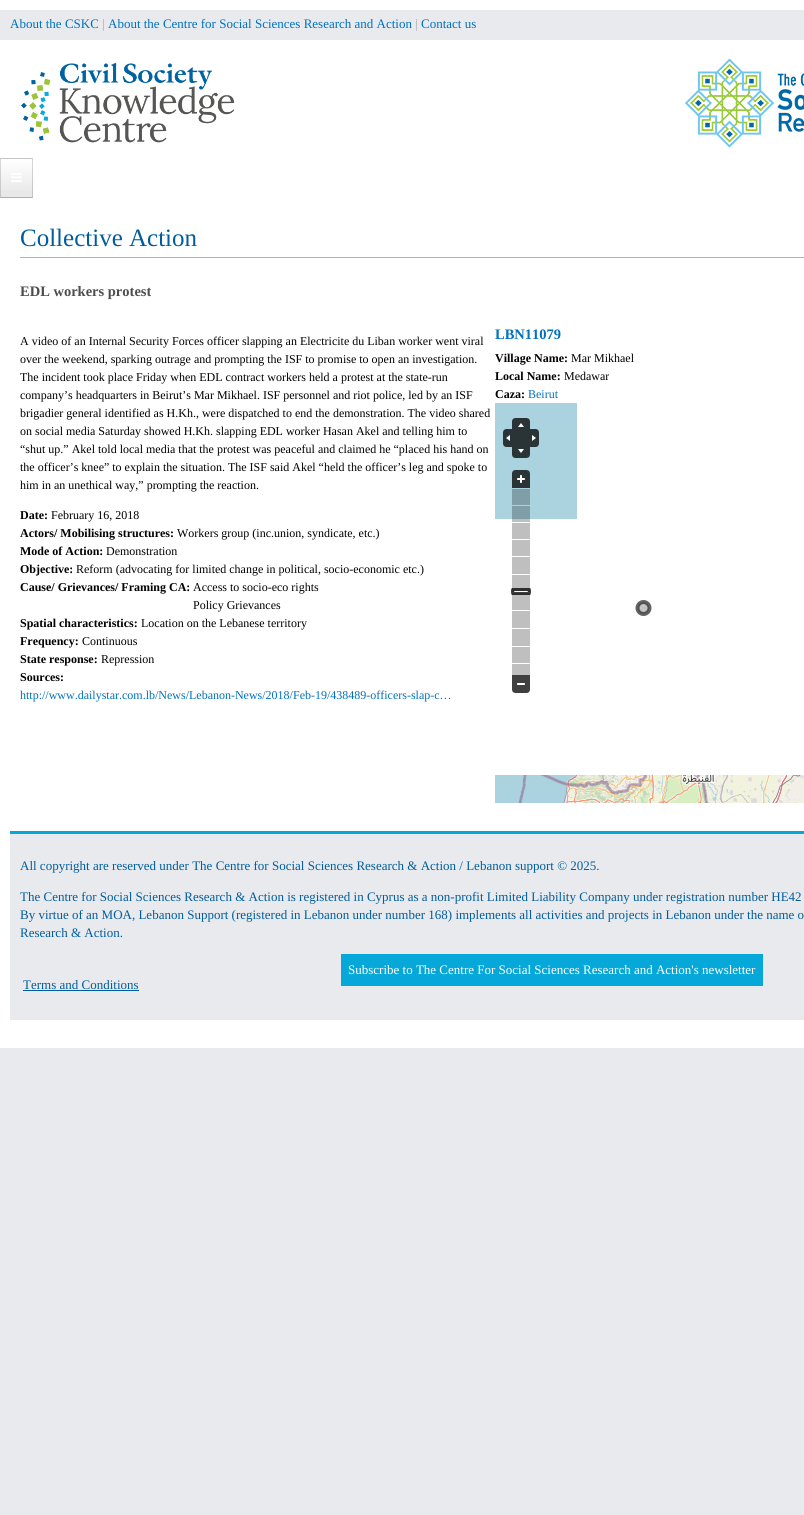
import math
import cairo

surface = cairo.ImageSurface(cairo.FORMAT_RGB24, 804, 1515)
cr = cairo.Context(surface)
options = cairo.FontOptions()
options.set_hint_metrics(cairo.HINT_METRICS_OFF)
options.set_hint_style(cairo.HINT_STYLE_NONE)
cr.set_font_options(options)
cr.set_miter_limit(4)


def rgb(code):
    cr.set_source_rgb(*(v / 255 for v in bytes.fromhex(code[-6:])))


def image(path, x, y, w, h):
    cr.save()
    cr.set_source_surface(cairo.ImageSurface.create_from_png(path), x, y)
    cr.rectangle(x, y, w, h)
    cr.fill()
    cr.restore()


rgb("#e9eaed")
cr.paint()
rgb("#ffffff")
cr.rectangle(0, 0, 804, 1048)
cr.fill()
rgb("#e9eaed")
cr.rectangle(0, 10, 804, 30)
cr.fill()
image("img/1.png", 21, 63, 214, 80)
image("img/2.png", 685, 58, 119, 90)
rgb("#e8e8e8")
cr.rectangle(0, 158, 33, 40)
cr.fill()
gradient = cairo.LinearGradient(16, 159, 17, 197)
gradient.add_color_stop_rgba(0, 1, 1, 1, 1)
gradient.add_color_stop_rgba(1, 0.902, 0.902, 0.902, 1)
cr.set_source(gradient)
cr.rectangle(0, 159, 33, 32)
cr.fill()
rgb("#c5c5c5")
cr.new_path()
cr.move_to(0, 158)
cr.line_to(33, 158)
cr.line_to(32, 159)
cr.line_to(1, 159)
cr.close_path()
cr.fill()
cr.set_source_rgba(0, 0, 0, 0.15)
cr.new_path()
cr.move_to(33, 158)
cr.line_to(33, 198)
cr.line_to(32, 197)
cr.line_to(32, 159)
cr.close_path()
cr.fill()
cr.set_source_rgba(0, 0, 0, 0.25)
cr.new_path()
cr.move_to(33, 198)
cr.line_to(0, 198)
cr.line_to(1, 197)
cr.line_to(32, 197)
cr.close_path()
cr.fill()
cr.set_source_rgba(0, 0, 0, 0.15)
cr.new_path()
cr.move_to(0, 198)
cr.line_to(0, 158)
cr.line_to(1, 159)
cr.line_to(1, 197)
cr.close_path()
cr.fill()
image("img/3.png", 11, 173, 11, 9)
rgb("#aecb3a")
cr.rectangle(20, 257, 784, 1)
cr.fill()
rgb("#aad3df")
cr.rectangle(495, 403, 82, 116)
cr.fill()
image("img/4.png", 495, 775, 82, 28)
image("img/5.png", 577, 775, 227, 28)
rgb("#c4c4c4")
cr.arc(643.5, 608, 6, 0, 2 * math.pi)
cr.fill_preserve()
cr.set_source_rgba(0.133, 0.133, 0.133, 0.7)
cr.set_line_width(4)
cr.stroke()
image("img/6.png", 512, 418, 18, 11)
image("img/7.png", 503, 429, 18, 18)
image("img/8.png", 521, 429, 18, 18)
image("img/9.png", 512, 447, 18, 11)
image("img/10.png", 512, 470, 18, 18)
image("img/11.png", 512, 489, 18, 186)
image("img/12.png", 511, 588, 20, 7)
image("img/13.png", 512, 675, 18, 18)
for x, y, w, h, color in [
    (10, 834, 794, 186, "#e9eaed"),
    (10, 831, 794, 3, "#05a8d9"),
    (341, 954, 422, 32, "#05a8d9"),
    (23, 990, 116, 1, "#005d9d"),
]:
    rgb(color)
    cr.rectangle(x, y, w, h)
    cr.fill()
cr.select_font_face("Liberation Serif")
cr.set_font_size(13)
rgb("#0071bc")
cr.move_to(10, 28)
cr.show_text("About the CSKC")
rgb("#a6a6a6")
cr.move_to(102, 28)
cr.show_text("|")
rgb("#0071bc")
cr.move_to(108, 28)
cr.show_text("About the Centre for Social Sciences Research and Action")
rgb("#a6a6a6")
cr.move_to(415, 28)
cr.show_text("|")
rgb("#0071bc")
cr.move_to(421, 28)
cr.show_text("Contact us")
cr.set_font_size(25)
rgb("#005d9d")
cr.move_to(20, 246)
cr.show_text("Collective Action")
cr.select_font_face("Liberation Serif", cairo.FONT_SLANT_NORMAL, cairo.FONT_WEIGHT_BOLD)
cr.set_font_size(14.5)
rgb("#4d4d4d")
cr.move_to(20, 296)
cr.show_text("EDL workers protest")
cr.select_font_face("Liberation Serif")
cr.set_font_size(12)
rgb("#000000")
for x, y, s in [
    (20, 345, "A video of an Internal Security Forces officer slapping an Electricite du Liban worker went viral"),
    (20, 363, "over the weekend, sparking outrage and prompting the ISF to promise to open an investigation."),
    (20, 381, "The incident took place Friday when EDL contract workers held a protest at the state-run"),
    (20, 399, "company’s headquarters in Beirut’s Mar Mikhael. ISF personnel and riot police, led by an ISF"),
    (20, 417, "brigadier general identified as H.Kh., were dispatched to end the demonstration. The video shared"),
    (20, 435, "on social media Saturday showed H.Kh. slapping EDL worker Hasan Akel and telling him to"),
    (20, 453, "“shut up.” Akel told local media that the protest was peaceful and claimed he “placed his hand on"),
    (20, 471, "the officer’s knee” to explain the situation. The ISF said Akel “held the officer’s leg and spoke to"),
    (20, 489, "him in an unethical way,” prompting the reaction."),
]:
    cr.move_to(x, y)
    cr.show_text(s)
cr.select_font_face("Liberation Serif", cairo.FONT_SLANT_NORMAL, cairo.FONT_WEIGHT_BOLD)
cr.move_to(20, 519)
cr.show_text("Date:")
cr.select_font_face("Liberation Serif")
cr.move_to(51, 519)
cr.show_text("February 16, 2018")
cr.select_font_face("Liberation Serif", cairo.FONT_SLANT_NORMAL, cairo.FONT_WEIGHT_BOLD)
cr.move_to(20, 537)
cr.show_text("Actors/ Mobilising structures:")
cr.select_font_face("Liberation Serif")
cr.move_to(177, 537)
cr.show_text("Workers group (inc.union, syndicate, etc.)")
cr.select_font_face("Liberation Serif", cairo.FONT_SLANT_NORMAL, cairo.FONT_WEIGHT_BOLD)
cr.move_to(20, 555)
cr.show_text("Mode of Action:")
cr.select_font_face("Liberation Serif")
cr.move_to(106, 555)
cr.show_text("Demonstration")
cr.select_font_face("Liberation Serif", cairo.FONT_SLANT_NORMAL, cairo.FONT_WEIGHT_BOLD)
cr.move_to(20, 573)
cr.show_text("Objective:")
cr.select_font_face("Liberation Serif")
cr.move_to(76, 573)
cr.show_text("Reform (advocating for limited change in political, socio-economic etc.)")
cr.select_font_face("Liberation Serif", cairo.FONT_SLANT_NORMAL, cairo.FONT_WEIGHT_BOLD)
cr.move_to(20, 591)
cr.show_text("Cause/ Grievances/ Framing CA:")
cr.select_font_face("Liberation Serif")
cr.move_to(193, 591)
cr.show_text("Access to socio-eco rights")
cr.move_to(193, 609)
cr.show_text("Policy Grievances")
cr.select_font_face("Liberation Serif", cairo.FONT_SLANT_NORMAL, cairo.FONT_WEIGHT_BOLD)
cr.move_to(20, 627)
cr.show_text("Spatial characteristics:")
cr.select_font_face("Liberation Serif")
cr.move_to(141, 627)
cr.show_text("Location on the Lebanese territory")
cr.select_font_face("Liberation Serif", cairo.FONT_SLANT_NORMAL, cairo.FONT_WEIGHT_BOLD)
cr.move_to(20, 645)
cr.show_text("Frequency:")
cr.select_font_face("Liberation Serif")
cr.move_to(82, 645)
cr.show_text("Continuous")
cr.select_font_face("Liberation Serif", cairo.FONT_SLANT_NORMAL, cairo.FONT_WEIGHT_BOLD)
cr.move_to(20, 663)
cr.show_text("State response:")
cr.select_font_face("Liberation Serif")
cr.move_to(101, 663)
cr.show_text("Repression")
cr.select_font_face("Liberation Serif", cairo.FONT_SLANT_NORMAL, cairo.FONT_WEIGHT_BOLD)
cr.move_to(20, 681)
cr.show_text("Sources:")
cr.select_font_face("Liberation Serif")
rgb("#0071bc")
cr.move_to(20, 699)
cr.show_text("http://www.dailystar.com.lb/News/Lebanon-News/2018/Feb-19/438489-officers-slap-c…")
cr.select_font_face("Liberation Serif", cairo.FONT_SLANT_NORMAL, cairo.FONT_WEIGHT_BOLD)
cr.set_font_size(14.5)
cr.move_to(495, 339)
cr.show_text("LBN11079")
cr.set_font_size(12)
rgb("#000000")
cr.move_to(495, 362)
cr.show_text("Village Name:")
cr.select_font_face("Liberation Serif")
cr.move_to(571, 362)
cr.show_text("Mar Mikhael")
cr.select_font_face("Liberation Serif", cairo.FONT_SLANT_NORMAL, cairo.FONT_WEIGHT_BOLD)
cr.move_to(495, 380)
cr.show_text("Local Name:")
cr.select_font_face("Liberation Serif")
cr.move_to(564, 380)
cr.show_text("Medawar")
cr.select_font_face("Liberation Serif", cairo.FONT_SLANT_NORMAL, cairo.FONT_WEIGHT_BOLD)
cr.move_to(495, 398)
cr.show_text("Caza:")
cr.select_font_face("Liberation Serif")
rgb("#0071bc")
cr.move_to(528, 398)
cr.show_text("Beirut")
cr.set_font_size(13)
rgb("#005d9d")
for x, y, s in [
    (20, 870, "All copyright are reserved under The Centre for Social Sciences Research & Action / Lebanon support © 2025."),
    (20, 901, "The Centre for Social Sciences Research & Action is registered in Cyprus as a non-profit Limited Liability Company under registration number HE42"),
    (20, 919, "By virtue of an MOA, Lebanon Support (registered in Lebanon under number 168) implements all activities and projects in Lebanon under the name o"),
    (20, 937, "Research & Action."),
]:
    cr.move_to(x, y)
    cr.show_text(s)
rgb("#ffffff")
cr.move_to(348, 974)
cr.show_text("Subscribe to The Centre For Social Sciences Research and Action's newsletter")
rgb("#005d9d")
cr.move_to(23, 989)
cr.show_text("Terms and Conditions")
surface.write_to_png("page.png")
